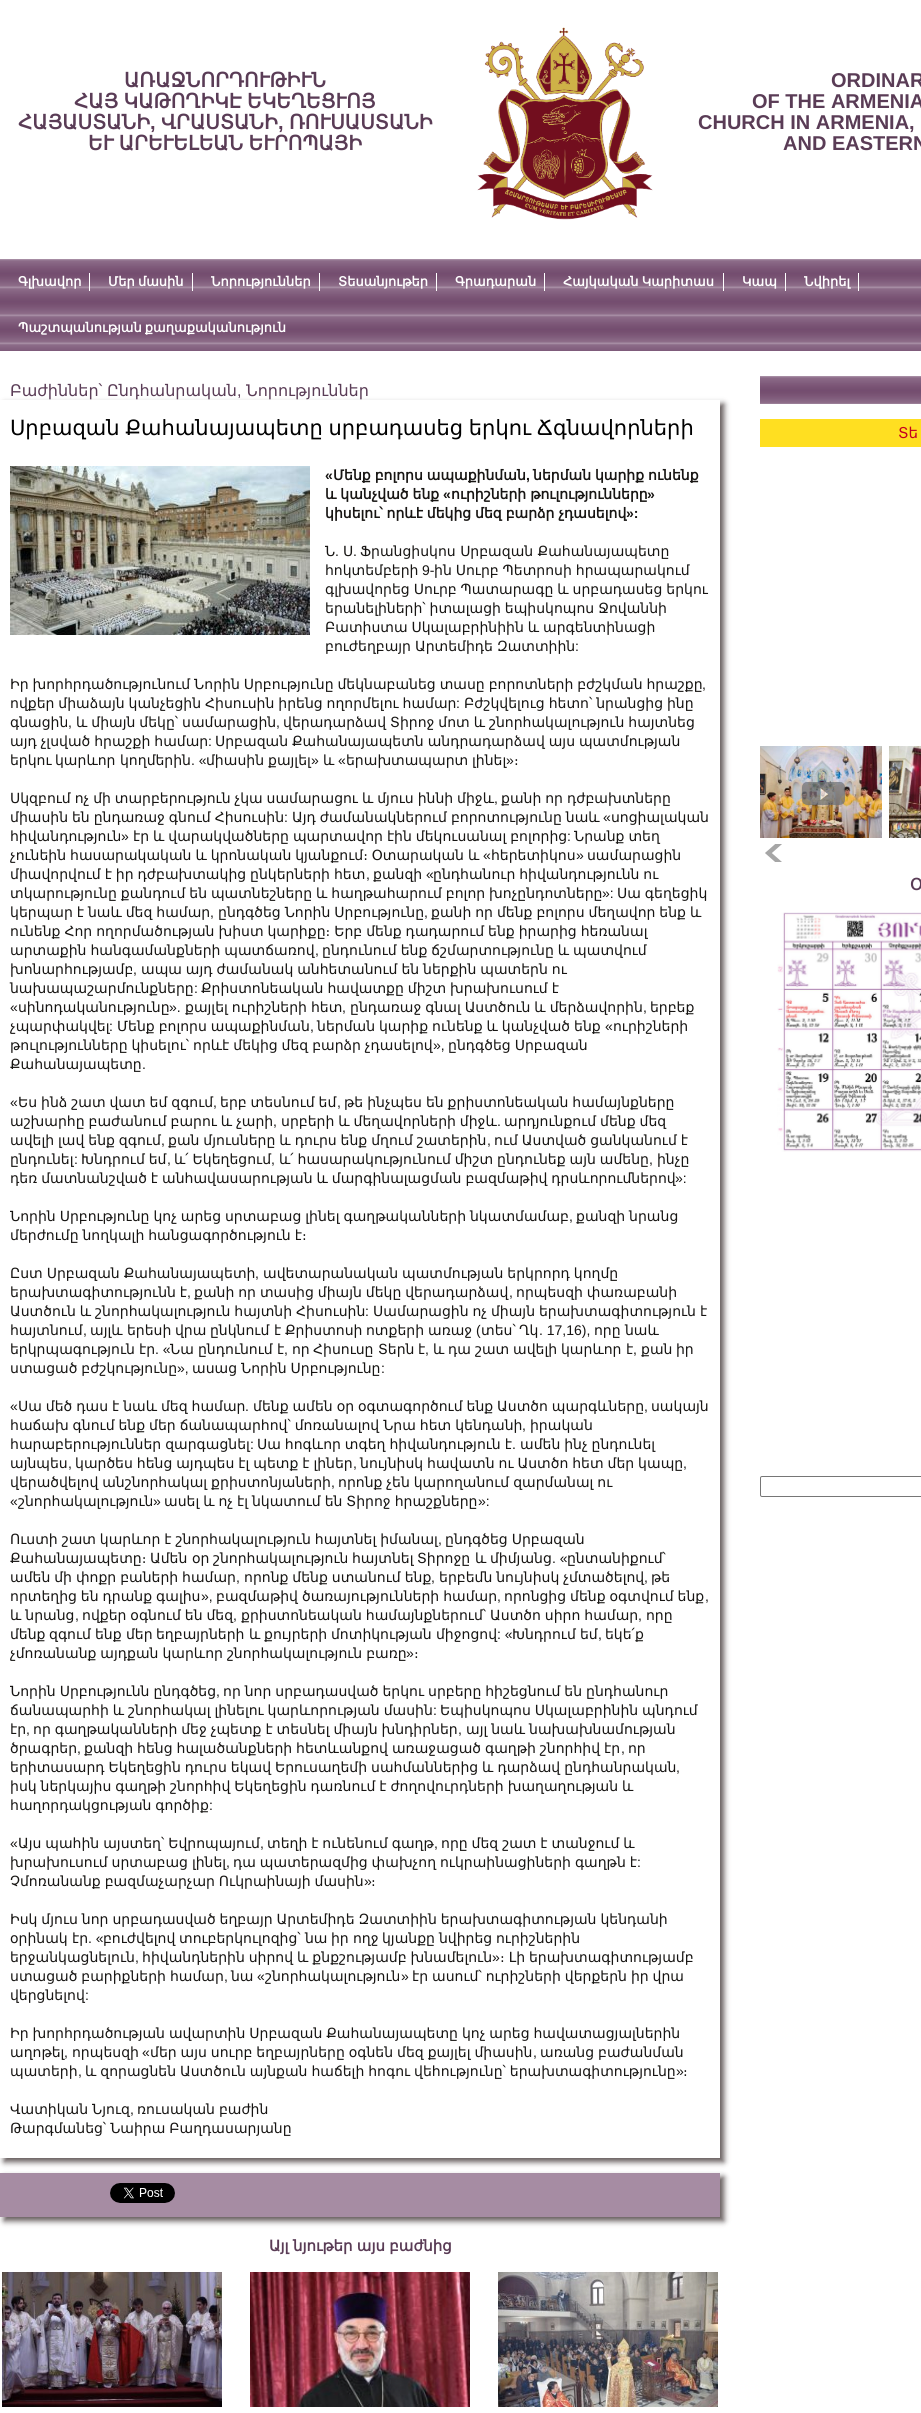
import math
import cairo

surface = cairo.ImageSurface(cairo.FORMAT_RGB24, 921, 2413)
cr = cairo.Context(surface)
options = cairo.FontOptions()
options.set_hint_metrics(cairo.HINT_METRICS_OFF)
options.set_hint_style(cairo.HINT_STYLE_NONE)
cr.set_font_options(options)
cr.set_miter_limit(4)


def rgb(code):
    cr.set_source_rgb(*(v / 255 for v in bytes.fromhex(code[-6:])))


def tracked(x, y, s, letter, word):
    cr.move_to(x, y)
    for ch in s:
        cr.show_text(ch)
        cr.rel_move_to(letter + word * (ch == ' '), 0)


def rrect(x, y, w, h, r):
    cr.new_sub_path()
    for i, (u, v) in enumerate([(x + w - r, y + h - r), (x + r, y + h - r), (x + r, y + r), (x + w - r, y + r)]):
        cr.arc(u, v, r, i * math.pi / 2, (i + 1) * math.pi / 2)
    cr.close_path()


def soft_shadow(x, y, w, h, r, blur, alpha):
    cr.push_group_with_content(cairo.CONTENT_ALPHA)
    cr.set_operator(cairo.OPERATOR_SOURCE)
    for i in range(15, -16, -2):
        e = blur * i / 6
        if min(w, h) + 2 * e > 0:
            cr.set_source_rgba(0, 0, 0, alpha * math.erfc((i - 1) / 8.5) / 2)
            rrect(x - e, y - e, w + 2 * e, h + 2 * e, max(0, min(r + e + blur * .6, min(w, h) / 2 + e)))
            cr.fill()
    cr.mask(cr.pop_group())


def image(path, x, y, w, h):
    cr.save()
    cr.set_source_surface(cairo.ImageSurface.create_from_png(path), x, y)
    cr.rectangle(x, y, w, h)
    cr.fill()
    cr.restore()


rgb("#ffffff")
cr.paint()
image("img/1.png", 477, 27, 176, 193)
image("img/2.png", 0, 259, 921, 92)
for x, y, w, h, color in [
    (89, 273, 1, 18, "#ffffff"),
    (192, 273, 1, 18, "#ffffff"),
    (319, 273, 1, 18, "#ffffff"),
    (436, 273, 1, 18, "#ffffff"),
    (544, 273, 1, 18, "#ffffff"),
    (723, 273, 1, 18, "#ffffff"),
    (785, 273, 1, 18, "#ffffff"),
    (858, 273, 1, 18, "#ffffff"),
]:
    rgb(color)
    cr.rectangle(x, y, w, h)
    cr.fill()
cr.save()
cr.set_fill_rule(cairo.FILL_RULE_EVEN_ODD)
cr.new_path()
cr.move_to(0, 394)
cr.line_to(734, 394)
cr.line_to(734, 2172)
cr.line_to(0, 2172)
cr.close_path()
cr.move_to(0, 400)
cr.line_to(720, 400)
cr.line_to(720, 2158)
cr.line_to(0, 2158)
cr.close_path()
cr.clip()
rgb("#615858")
soft_shadow(4, 404, 720, 1758, 0, 3, 1)
cr.restore()
image("img/3.png", 10, 466, 300, 169)
rgb("#615858")
soft_shadow(4, 2177, 720, 44, 0, 3, 1)
rgb("#a68ca3")
cr.rectangle(0, 2173, 720, 44)
cr.fill()
image("img/4.png", 110, 2183, 65, 20)
image("img/5.png", 2, 2272, 220, 135)
image("img/6.png", 250, 2272, 220, 135)
image("img/7.png", 498, 2272, 220, 135)
image("img/8.png", 760, 376, 161, 28)
rgb("#ffdf21")
cr.rectangle(760, 419, 161, 28)
cr.fill()
image("img/9.png", 760, 746, 122, 92)
image("img/10.png", 802, 782, 43, 23)
image("img/11.png", 889, 746, 32, 92)
image("img/12.png", 765, 844, 17, 18)
image("img/13.png", 777, 912, 144, 240)
rrect(760.5, 1476.5, 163, 20, 1.5)
rgb("#767676")
cr.set_line_width(1)
cr.stroke()
cr.select_font_face("DejaVu Sans", cairo.FONT_SLANT_NORMAL, cairo.FONT_WEIGHT_BOLD)
cr.set_font_size(20)
rgb("#5a3c56")
cr.move_to(124, 87)
cr.show_text("ԱՌԱՋՆՈՐԴՈՒԹԻՒՆ")
tracked(74, 108, "ՀԱՅ ԿԱԹՈՂԻԿԷ ԵԿԵՂԵՑՒՈՅ", 0, -1)
cr.move_to(18, 129)
cr.show_text("ՀԱՅԱՍՏԱՆԻ")
cr.select_font_face("Liberation Sans", cairo.FONT_SLANT_NORMAL, cairo.FONT_WEIGHT_BOLD)
cr.move_to(150, 129)
cr.show_text(",")
cr.select_font_face("DejaVu Sans", cairo.FONT_SLANT_NORMAL, cairo.FONT_WEIGHT_BOLD)
cr.move_to(161, 129)
cr.show_text("ՎՐԱՍՏԱՆԻ")
cr.select_font_face("Liberation Sans", cairo.FONT_SLANT_NORMAL, cairo.FONT_WEIGHT_BOLD)
cr.move_to(278, 129)
cr.show_text(",")
cr.select_font_face("DejaVu Sans", cairo.FONT_SLANT_NORMAL, cairo.FONT_WEIGHT_BOLD)
cr.move_to(289, 129)
cr.show_text("ՌՈՒՍԱՍՏԱՆԻ")
tracked(88, 150, "ԵՒ ԱՐԵՒԵԼԵԱՆ ԵՒՐՈՊԱՅԻ", 0, -1)
cr.select_font_face("Liberation Sans", cairo.FONT_SLANT_NORMAL, cairo.FONT_WEIGHT_BOLD)
for x, y, s in [
    (831, 87, "ORDINAR"),
    (752, 108, "OF THE ARMENIA"),
    (698, 129, "CHURCH IN ARMENIA,"),
    (783, 150, "AND EASTERN"),
]:
    cr.move_to(x, y)
    cr.show_text(s)
cr.select_font_face("DejaVu Sans", cairo.FONT_SLANT_NORMAL, cairo.FONT_WEIGHT_BOLD)
cr.set_font_size(13)
rgb("#ffffff")
cr.move_to(18, 286)
cr.show_text("Գլխավոր")
tracked(108, 286, "Մեր մասին", 0, -1)
for x, y, s in [
    (211, 286, "Նորություններ"),
    (338, 286, "Տեսանյութեր"),
    (455, 286, "Գրադարան"),
]:
    cr.move_to(x, y)
    cr.show_text(s)
tracked(563, 286, "Հայկական Կարիտաս", 0, -1)
cr.move_to(742, 286)
cr.show_text("Կապ")
cr.move_to(804, 286)
cr.show_text("Նվիրել")
tracked(18, 332, "Պաշտպանության քաղաքականություն", 0, -1)
cr.select_font_face("DejaVu Sans")
cr.set_font_size(16)
rgb("#5a3c56")
cr.move_to(10, 396)
cr.show_text("Բաժիններ՝")
cr.move_to(107, 396)
cr.show_text("Ընդհանրական")
cr.select_font_face("Liberation Sans")
cr.move_to(237, 396)
cr.show_text(",")
cr.select_font_face("DejaVu Sans")
cr.move_to(246, 396)
cr.show_text("Նորություններ")
cr.set_font_size(21)
rgb("#000000")
tracked(10, 435, "Սրբազան Քահանայապետը սրբադասեց երկու Ճգնավորների", 0, -1)
cr.select_font_face("Liberation Sans", cairo.FONT_SLANT_NORMAL, cairo.FONT_WEIGHT_BOLD)
cr.set_font_size(14)
rgb("#171513")
cr.move_to(325, 480)
cr.show_text("«")
cr.select_font_face("DejaVu Sans", cairo.FONT_SLANT_NORMAL, cairo.FONT_WEIGHT_BOLD)
tracked(333, 480, "Մենք բոլորս ապաքինման", 0, -0.5)
cr.select_font_face("Liberation Sans", cairo.FONT_SLANT_NORMAL, cairo.FONT_WEIGHT_BOLD)
cr.move_to(526, 480)
cr.show_text(",")
cr.select_font_face("DejaVu Sans", cairo.FONT_SLANT_NORMAL, cairo.FONT_WEIGHT_BOLD)
tracked(533, 480, "ներման կարիք ունենք", 0, -0.5)
tracked(325, 499, "և կանչված ենք", 0, -0.5)
cr.select_font_face("Liberation Sans", cairo.FONT_SLANT_NORMAL, cairo.FONT_WEIGHT_BOLD)
cr.move_to(443, 499)
cr.show_text("«")
cr.select_font_face("DejaVu Sans", cairo.FONT_SLANT_NORMAL, cairo.FONT_WEIGHT_BOLD)
tracked(451, 499, "ուրիշների թուլությունները", 0, -0.5)
cr.select_font_face("Liberation Sans", cairo.FONT_SLANT_NORMAL, cairo.FONT_WEIGHT_BOLD)
cr.move_to(647, 499)
cr.show_text("»")
cr.select_font_face("DejaVu Sans", cairo.FONT_SLANT_NORMAL, cairo.FONT_WEIGHT_BOLD)
tracked(325, 518, "կիսելու՝ որևէ մեկից մեզ բարձր չդասելով", 0, -0.5)
cr.select_font_face("Liberation Sans", cairo.FONT_SLANT_NORMAL, cairo.FONT_WEIGHT_BOLD)
cr.move_to(626, 518)
cr.show_text("»:")
cr.select_font_face("DejaVu Sans")
cr.move_to(325, 556)
cr.show_text("Ն")
cr.select_font_face("Liberation Sans")
cr.move_to(335, 556)
cr.show_text(".")
cr.select_font_face("DejaVu Sans")
cr.move_to(343, 556)
cr.show_text("Ս")
cr.select_font_face("Liberation Sans")
cr.move_to(353, 556)
cr.show_text(".")
cr.select_font_face("DejaVu Sans")
cr.move_to(360, 556)
cr.show_text("Ֆրանցիսկոս Սրբազան Քահանայապետը")
cr.move_to(325, 575)
cr.show_text("հոկտեմբերի")
cr.select_font_face("Liberation Sans")
cr.move_to(422, 575)
cr.show_text("9-")
cr.select_font_face("DejaVu Sans")
for x, y, s in [
    (434, 575, "ին Սուրբ Պետրոսի հրապարակում"),
    (325, 594, "գլխավորեց Սուրբ Պատարագը և սրբադասեց երկու"),
    (325, 613, "երանելիների՝ իտալացի եպիսկոպոս Ջովաննի"),
    (325, 632, "Բատիստա Սկալաբրինիին և արգենտինացի"),
    (325, 651, "բուժեղբայր Արտեմիդե Զատտիին"),
]:
    tracked(x, y, s, 0, -0.5)
cr.select_font_face("Liberation Sans")
cr.move_to(575, 651)
cr.show_text(":")
cr.select_font_face("DejaVu Sans")
tracked(10, 689, "Իր խորհրդածությունում Նորին Սրբությունը մեկնաբանեց տասը բորոտների բժշկման հրաշքը", 0, -0.5)
cr.select_font_face("Liberation Sans")
cr.move_to(702, 689)
cr.show_text(",")
cr.select_font_face("DejaVu Sans")
tracked(10, 708, "ովքեր միաձայն կանչեցին Հիսուսին իրենց ողորմելու համար", 0, -0.5)
cr.select_font_face("Liberation Sans")
cr.move_to(456, 708)
cr.show_text(":")
cr.select_font_face("DejaVu Sans")
tracked(464, 708, "Բժշկվելուց հետո՝ նրանցից ինը", 0, -0.5)
cr.move_to(10, 727)
cr.show_text("գնացին")
cr.select_font_face("Liberation Sans")
cr.move_to(68, 727)
cr.show_text(",")
cr.select_font_face("DejaVu Sans")
tracked(76, 727, "և միայն մեկը՝ սամարացին", 0, -0.5)
cr.select_font_face("Liberation Sans")
cr.move_to(276, 727)
cr.show_text(",")
cr.select_font_face("DejaVu Sans")
tracked(283, 727, "վերադարձավ Տիրոջ մոտ և շնորհակալություն հայտնեց", 0, -0.5)
tracked(10, 746, "այդ չլսված հրաշքի համար", 0, -0.5)
cr.select_font_face("Liberation Sans")
cr.move_to(208, 746)
cr.show_text(":")
cr.select_font_face("DejaVu Sans")
tracked(215, 746, "Սրբազան Քահանայապետն անդրադարձավ այս պատմության", 0, -0.5)
for x, y, s in [
    (10, 765, "երկու"),
    (55, 765, "կարևոր"),
    (120, 765, "կողմերին"),
]:
    cr.move_to(x, y)
    cr.show_text(s)
cr.select_font_face("Liberation Sans")
cr.move_to(191, 765)
cr.show_text(". «")
cr.select_font_face("DejaVu Sans")
cr.move_to(206, 765)
cr.show_text("միասին")
cr.move_to(268, 765)
cr.show_text("քայլել")
cr.select_font_face("Liberation Sans")
cr.move_to(311, 765)
cr.show_text("»")
cr.select_font_face("DejaVu Sans")
cr.move_to(323, 765)
cr.show_text("և")
cr.select_font_face("Liberation Sans")
cr.move_to(338, 765)
cr.show_text("«")
cr.select_font_face("DejaVu Sans")
cr.move_to(346, 765)
cr.show_text("երախտապարտ")
cr.move_to(472, 765)
cr.show_text("լինել")
cr.select_font_face("Liberation Sans")
cr.move_to(506, 765)
cr.show_text("»")
cr.select_font_face("DejaVu Sans")
cr.move_to(514, 765)
cr.show_text("։")
tracked(10, 803, "Սկզբում ոչ մի տարբերություն չկա սամարացու և մյուս իննի միջև", 0, -0.5)
cr.select_font_face("Liberation Sans")
cr.move_to(494, 803)
cr.show_text(",")
cr.select_font_face("DejaVu Sans")
tracked(501, 803, "քանի որ դժբախտները", 0, -0.5)
tracked(10, 822, "միասին են ընդառաջ գնում Հիսուսին", 0, -0.5)
cr.select_font_face("Liberation Sans")
cr.move_to(284, 822)
cr.show_text(":")
cr.select_font_face("DejaVu Sans")
tracked(292, 822, "Այդ ժամանակներում բորոտությունը նաև", 0, -0.5)
cr.select_font_face("Liberation Sans")
cr.move_to(603, 822)
cr.show_text("«")
cr.select_font_face("DejaVu Sans")
cr.move_to(611, 822)
cr.show_text("սոցիալական")
cr.move_to(10, 841)
cr.show_text("հիվանդություն")
cr.select_font_face("Liberation Sans")
cr.move_to(121, 841)
cr.show_text("»")
cr.select_font_face("DejaVu Sans")
tracked(133, 841, "էր և վարակվածները պարտավոր էին մեկուսանալ բոլորից", 0, -0.5)
cr.select_font_face("Liberation Sans")
cr.move_to(567, 841)
cr.show_text(":")
cr.select_font_face("DejaVu Sans")
tracked(574, 841, "Նրանք տեղ", 0, -0.5)
tracked(10, 860, "չունեին հասարակական և կրոնական կյանքում։ Օտարական և", 0, -0.5)
cr.select_font_face("Liberation Sans")
cr.move_to(483, 860)
cr.show_text("«")
cr.select_font_face("DejaVu Sans")
cr.move_to(491, 860)
cr.show_text("հերետիկոս")
cr.select_font_face("Liberation Sans")
cr.move_to(576, 860)
cr.show_text("»")
cr.select_font_face("DejaVu Sans")
cr.move_to(587, 860)
cr.show_text("սամարացին")
tracked(10, 879, "միավորվում է իր դժբախտակից ընկերների հետ", 0, -0.5)
cr.select_font_face("Liberation Sans")
cr.move_to(366, 879)
cr.show_text(",")
cr.select_font_face("DejaVu Sans")
cr.move_to(373, 879)
cr.show_text("քանզի")
cr.select_font_face("Liberation Sans")
cr.move_to(426, 879)
cr.show_text("«")
cr.select_font_face("DejaVu Sans")
tracked(433, 879, "ընդհանուր հիվանդությունն ու", 0, -0.5)
tracked(10, 898, "տկարությունը քանդում են պատնեշները և հաղթահարում բոլոր խոչընդոտները", 0, -0.5)
cr.select_font_face("Liberation Sans")
cr.move_to(602, 898)
cr.show_text("»:")
cr.select_font_face("DejaVu Sans")
tracked(617, 898, "Սա գեղեցիկ", 0, -0.5)
tracked(10, 917, "կերպար է նաև մեզ համար", 0, -0.5)
cr.select_font_face("Liberation Sans")
cr.move_to(210, 917)
cr.show_text(",")
cr.select_font_face("DejaVu Sans")
tracked(218, 917, "ընդգծեց Նորին Սրբությունը", 0, -0.5)
cr.select_font_face("Liberation Sans")
cr.move_to(424, 917)
cr.show_text(",")
cr.select_font_face("DejaVu Sans")
for x, y, s in [
    (431, 917, "քանի որ մենք բոլորս մեղավոր ենք և"),
    (10, 936, "ունենք Հոր ողորմածության խիստ կարիքը։ Երբ մենք դադարում ենք իրարից հեռանալ"),
    (10, 955, "արտաքին հանգամանքների պատճառով"),
]:
    tracked(x, y, s, 0, -0.5)
cr.select_font_face("Liberation Sans")
cr.move_to(315, 955)
cr.show_text(",")
cr.select_font_face("DejaVu Sans")
tracked(322, 955, "ընդունում ենք ճշմարտությունը և պատվում", 0, -0.5)
cr.move_to(10, 974)
cr.show_text("խոնարհությամբ")
cr.select_font_face("Liberation Sans")
cr.move_to(133, 974)
cr.show_text(",")
cr.select_font_face("DejaVu Sans")
tracked(141, 974, "ապա այդ ժամանակ անհետանում են ներքին պատերն ու", 0, -0.5)
cr.move_to(10, 993)
cr.show_text("նախապաշարմունքները")
cr.select_font_face("Liberation Sans")
cr.move_to(194, 993)
cr.show_text(":")
cr.select_font_face("DejaVu Sans")
tracked(201, 993, "Քրիստոնեական հավատքը միշտ խրախուսում է", 0, -0.5)
cr.select_font_face("Liberation Sans")
cr.move_to(10, 1012)
cr.show_text("«")
cr.select_font_face("DejaVu Sans")
cr.move_to(18, 1012)
cr.show_text("սինոդականությունը")
cr.select_font_face("Liberation Sans")
cr.move_to(169, 1012)
cr.show_text("».")
cr.select_font_face("DejaVu Sans")
tracked(185, 1012, "քայլել ուրիշների հետ", 0, -0.5)
cr.select_font_face("Liberation Sans")
cr.move_to(342, 1012)
cr.show_text(",")
cr.select_font_face("DejaVu Sans")
tracked(350, 1012, "ընդառաջ գնալ Աստծուն և մերձավորին", 0, -0.5)
cr.select_font_face("Liberation Sans")
cr.move_to(643, 1012)
cr.show_text(",")
cr.select_font_face("DejaVu Sans")
cr.move_to(650, 1012)
cr.show_text("երբեք")
cr.move_to(10, 1031)
cr.show_text("չպարփակվել")
cr.select_font_face("Liberation Sans")
cr.move_to(109, 1031)
cr.show_text(":")
cr.select_font_face("DejaVu Sans")
tracked(117, 1031, "Մենք բոլորս ապաքինման", 0, -0.5)
cr.select_font_face("Liberation Sans")
cr.move_to(310, 1031)
cr.show_text(",")
cr.select_font_face("DejaVu Sans")
tracked(317, 1031, "ներման կարիք ունենք և կանչված ենք", 0, -0.5)
cr.select_font_face("Liberation Sans")
cr.move_to(605, 1031)
cr.show_text("«")
cr.select_font_face("DejaVu Sans")
cr.move_to(613, 1031)
cr.show_text("ուրիշների")
tracked(10, 1050, "թուլությունները կիսելու՝ որևէ մեկից մեզ բարձր չդասելով", 0, -0.5)
cr.select_font_face("Liberation Sans")
cr.move_to(433, 1050)
cr.show_text("»,")
cr.select_font_face("DejaVu Sans")
tracked(448, 1050, "ընդգծեց Սրբազան", 0, -0.5)
cr.move_to(10, 1069)
cr.show_text("Քահանայապետը")
cr.select_font_face("Liberation Sans")
cr.move_to(142, 1069)
cr.show_text(".")
cr.move_to(10, 1107)
cr.show_text("«")
cr.select_font_face("DejaVu Sans")
tracked(18, 1107, "Ես ինձ շատ վատ եմ զգում", 0, -0.5)
cr.select_font_face("Liberation Sans")
cr.move_to(213, 1107)
cr.show_text(",")
cr.select_font_face("DejaVu Sans")
tracked(220, 1107, "երբ տեսնում եմ", 0, -0.5)
cr.select_font_face("Liberation Sans")
cr.move_to(337, 1107)
cr.show_text(",")
cr.select_font_face("DejaVu Sans")
tracked(344, 1107, "թե ինչպես են քրիստոնեական համայնքները", 0, -0.5)
tracked(10, 1126, "աշխարհը բաժանում բարու և չարի", 0, -0.5)
cr.select_font_face("Liberation Sans")
cr.move_to(273, 1126)
cr.show_text(",")
cr.select_font_face("DejaVu Sans")
tracked(281, 1126, "սրբերի և մեղավորների միջև", 0, -0.5)
cr.select_font_face("Liberation Sans")
cr.move_to(497, 1126)
cr.show_text(".")
cr.select_font_face("DejaVu Sans")
tracked(504, 1126, "արդյունքում մենք մեզ", 0, -0.5)
tracked(10, 1145, "ավելի լավ ենք զգում", 0, -0.5)
cr.select_font_face("Liberation Sans")
cr.move_to(161, 1145)
cr.show_text(",")
cr.select_font_face("DejaVu Sans")
tracked(168, 1145, "քան մյուսները և դուրս ենք մղում շատերին", 0, -0.5)
cr.select_font_face("Liberation Sans")
cr.move_to(487, 1145)
cr.show_text(",")
cr.select_font_face("DejaVu Sans")
tracked(494, 1145, "ում Աստված ցանկանում է", 0, -0.5)
cr.move_to(10, 1164)
cr.show_text("ընդունել")
cr.select_font_face("Liberation Sans")
cr.move_to(74, 1164)
cr.show_text(":")
cr.select_font_face("DejaVu Sans")
tracked(81, 1164, "Խնդրում եմ", 0, -0.5)
cr.select_font_face("Liberation Sans")
cr.move_to(167, 1164)
cr.show_text(",")
cr.select_font_face("DejaVu Sans")
tracked(174, 1164, "և՛ Եկեղեցում", 0, -0.5)
cr.select_font_face("Liberation Sans")
cr.move_to(271, 1164)
cr.show_text(",")
cr.select_font_face("DejaVu Sans")
tracked(279, 1164, "և՛ հասարակությունում միշտ ընդունեք այն ամենը", 0, -0.5)
cr.select_font_face("Liberation Sans")
cr.move_to(649, 1164)
cr.show_text(",")
cr.select_font_face("DejaVu Sans")
cr.move_to(657, 1164)
cr.show_text("ինչը")
tracked(10, 1183, "դեռ մատնանշված է անհավասարության և մարգինալացման բազմաթիվ դրսևորումներով", 0, -0.5)
cr.select_font_face("Liberation Sans")
cr.move_to(675, 1183)
cr.show_text("»:")
cr.select_font_face("DejaVu Sans")
tracked(10, 1221, "Նորին Սրբությունը կոչ արեց սրտաբաց լինել գաղթականների նկատմամաբ", 0, -0.5)
cr.select_font_face("Liberation Sans")
cr.move_to(569, 1221)
cr.show_text(",")
cr.select_font_face("DejaVu Sans")
for x, y, s in [
    (576, 1221, "քանզի նրանց"),
    (10, 1240, "մերժումը նողկալի հանցագործություն է։"),
    (10, 1278, "Ըստ Սրբազան Քահանայապետի"),
]:
    tracked(x, y, s, 0, -0.5)
cr.select_font_face("Liberation Sans")
cr.move_to(255, 1278)
cr.show_text(",")
cr.select_font_face("DejaVu Sans")
tracked(263, 1278, "ավետարանական պատմության երկրորդ կողմը", 0, -0.5)
tracked(10, 1297, "երախտագիտությունն է", 0, -0.5)
cr.select_font_face("Liberation Sans")
cr.move_to(187, 1297)
cr.show_text(",")
cr.select_font_face("DejaVu Sans")
tracked(194, 1297, "քանի որ տասից միայն մեկը վերադարձավ", 0, -0.5)
cr.select_font_face("Liberation Sans")
cr.move_to(509, 1297)
cr.show_text(",")
cr.select_font_face("DejaVu Sans")
tracked(516, 1297, "որպեսզի փառաբանի", 0, -0.5)
tracked(10, 1316, "Աստծուն և շնորհակալություն հայտնի Հիսուսին", 0, -0.5)
cr.select_font_face("Liberation Sans")
cr.move_to(365, 1316)
cr.show_text(":")
cr.select_font_face("DejaVu Sans")
tracked(373, 1316, "Սամարացին ոչ միայն երախտագիտություն է", 0, -0.5)
cr.move_to(10, 1335)
cr.show_text("հայտնում")
cr.select_font_face("Liberation Sans")
cr.move_to(83, 1335)
cr.show_text(",")
cr.select_font_face("DejaVu Sans")
for x, y, s in [
    (90, 1335, "այլև"),
    (127, 1335, "երեսի"),
    (175, 1335, "վրա"),
    (210, 1335, "ընկնում"),
    (274, 1335, "է"),
    (285, 1335, "Քրիստոսի"),
    (366, 1335, "ոտքերի"),
    (428, 1335, "առաջ"),
]:
    cr.move_to(x, y)
    cr.show_text(s)
cr.select_font_face("Liberation Sans")
cr.move_to(476, 1335)
cr.show_text("(")
cr.select_font_face("DejaVu Sans")
cr.move_to(481, 1335)
cr.show_text("տես՝")
cr.move_to(519, 1335)
cr.show_text("Ղկ")
cr.select_font_face("Liberation Sans")
cr.move_to(539, 1335)
cr.show_text(". 17,16),")
cr.select_font_face("DejaVu Sans")
for x, y, s in [
    (594, 1335, "որը"),
    (625, 1335, "նաև"),
    (10, 1354, "երկրպագություն"),
    (139, 1354, "էր"),
]:
    cr.move_to(x, y)
    cr.show_text(s)
cr.select_font_face("Liberation Sans")
cr.move_to(155, 1354)
cr.show_text(". «")
cr.select_font_face("DejaVu Sans")
for x, y, s in [
    (170, 1354, "Նա"),
    (198, 1354, "ընդունում"),
    (277, 1354, "է"),
]:
    cr.move_to(x, y)
    cr.show_text(s)
cr.select_font_face("Liberation Sans")
cr.move_to(284, 1354)
cr.show_text(",")
cr.select_font_face("DejaVu Sans")
for x, y, s in [
    (292, 1354, "որ"),
    (313, 1354, "Հիսուսը"),
    (378, 1354, "Տերն"),
    (418, 1354, "է"),
]:
    cr.move_to(x, y)
    cr.show_text(s)
cr.select_font_face("Liberation Sans")
cr.move_to(425, 1354)
cr.show_text(",")
cr.select_font_face("DejaVu Sans")
for x, y, s in [
    (433, 1354, "և"),
    (448, 1354, "դա"),
    (475, 1354, "շատ"),
    (513, 1354, "ավելի"),
    (561, 1354, "կարևոր"),
    (626, 1354, "է"),
]:
    cr.move_to(x, y)
    cr.show_text(s)
cr.select_font_face("Liberation Sans")
cr.move_to(633, 1354)
cr.show_text(",")
cr.select_font_face("DejaVu Sans")
cr.move_to(641, 1354)
cr.show_text("քան")
cr.move_to(676, 1354)
cr.show_text("իր")
tracked(10, 1373, "ստացած բժշկությունը", 0, -0.5)
cr.select_font_face("Liberation Sans")
cr.move_to(177, 1373)
cr.show_text("»,")
cr.select_font_face("DejaVu Sans")
tracked(192, 1373, "ասաց Նորին Սրբությունը", 0, -0.5)
cr.select_font_face("Liberation Sans")
cr.move_to(381, 1373)
cr.show_text(":")
cr.move_to(10, 1411)
cr.show_text("«")
cr.select_font_face("DejaVu Sans")
tracked(18, 1411, "Սա մեծ դաս է նաև մեզ համար", 0, -0.5)
cr.select_font_face("Liberation Sans")
cr.move_to(245, 1411)
cr.show_text(".")
cr.select_font_face("DejaVu Sans")
tracked(253, 1411, "մենք ամեն օր օգտագործում ենք Աստծո պարգևները", 0, -0.5)
cr.select_font_face("Liberation Sans")
cr.move_to(644, 1411)
cr.show_text(",")
cr.select_font_face("DejaVu Sans")
cr.move_to(651, 1411)
cr.show_text("սակայն")
tracked(10, 1430, "հաճախ գնում ենք մեր ճանապարհով՝ մոռանալով Նրա հետ կենդանի", 0, -0.5)
cr.select_font_face("Liberation Sans")
cr.move_to(522, 1430)
cr.show_text(",")
cr.select_font_face("DejaVu Sans")
cr.move_to(530, 1430)
cr.show_text("իրական")
tracked(10, 1449, "հարաբերություններ զարգացնել", 0, -0.5)
cr.select_font_face("Liberation Sans")
cr.move_to(250, 1449)
cr.show_text(":")
cr.select_font_face("DejaVu Sans")
tracked(257, 1449, "Սա հոգևոր տգեղ հիվանդություն է", 0, -0.5)
cr.select_font_face("Liberation Sans")
cr.move_to(512, 1449)
cr.show_text(".")
cr.select_font_face("DejaVu Sans")
tracked(520, 1449, "ամեն ինչ ընդունել", 0, -0.5)
cr.move_to(10, 1468)
cr.show_text("այնպես")
cr.select_font_face("Liberation Sans")
cr.move_to(68, 1468)
cr.show_text(",")
cr.select_font_face("DejaVu Sans")
tracked(75, 1468, "կարծես հենց այդպես էլ պետք է լիներ", 0, -0.5)
cr.select_font_face("Liberation Sans")
cr.move_to(353, 1468)
cr.show_text(",")
cr.select_font_face("DejaVu Sans")
tracked(360, 1468, "նույնիսկ հավատն ու Աստծո հետ մեր կապը", 0, -0.5)
cr.select_font_face("Liberation Sans")
cr.move_to(683, 1468)
cr.show_text(",")
cr.select_font_face("DejaVu Sans")
tracked(10, 1487, "վերածվելով անշնորհակալ քրիստոնյաների", 0, -0.5)
cr.select_font_face("Liberation Sans")
cr.move_to(331, 1487)
cr.show_text(",")
cr.select_font_face("DejaVu Sans")
tracked(338, 1487, "որոնք չեն կարողանում զարմանալ ու", 0, -0.5)
cr.select_font_face("Liberation Sans")
cr.move_to(10, 1506)
cr.show_text("«")
cr.select_font_face("DejaVu Sans")
cr.move_to(18, 1506)
cr.show_text("շնորհակալություն")
cr.select_font_face("Liberation Sans")
cr.move_to(153, 1506)
cr.show_text("»")
cr.select_font_face("DejaVu Sans")
tracked(164, 1506, "ասել և ոչ էլ նկատում են Տիրոջ հրաշքները", 0, -0.5)
cr.select_font_face("Liberation Sans")
cr.move_to(478, 1506)
cr.show_text("»:")
cr.select_font_face("DejaVu Sans")
tracked(10, 1544, "Ուստի շատ կարևոր է շնորհակալություն հայտնել իմանալ", 0, -0.5)
cr.select_font_face("Liberation Sans")
cr.move_to(438, 1544)
cr.show_text(",")
cr.select_font_face("DejaVu Sans")
tracked(445, 1544, "ընդգծեց Սրբազան", 0, -0.5)
for x, y, s in [
    (10, 1563, "Քահանայապետը։"),
    (150, 1563, "Ամեն"),
    (192, 1563, "օր"),
    (213, 1563, "շնորհակալություն"),
    (352, 1563, "հայտնել"),
    (417, 1563, "Տիրոջը"),
    (475, 1563, "և"),
    (490, 1563, "միմյանց"),
]:
    cr.move_to(x, y)
    cr.show_text(s)
cr.select_font_face("Liberation Sans")
cr.move_to(552, 1563)
cr.show_text(". «")
cr.select_font_face("DejaVu Sans")
cr.move_to(567, 1563)
cr.show_text("ընտանիքում՝")
tracked(10, 1582, "ամեն մի փոքր բաների համար", 0, -0.5)
cr.select_font_face("Liberation Sans")
cr.move_to(236, 1582)
cr.show_text(",")
cr.select_font_face("DejaVu Sans")
tracked(244, 1582, "որոնք մենք ստանում ենք", 0, -0.5)
cr.select_font_face("Liberation Sans")
cr.move_to(431, 1582)
cr.show_text(",")
cr.select_font_face("DejaVu Sans")
tracked(439, 1582, "երբեմն նույնիսկ չմտածելով", 0, -0.5)
cr.select_font_face("Liberation Sans")
cr.move_to(644, 1582)
cr.show_text(",")
cr.select_font_face("DejaVu Sans")
cr.move_to(651, 1582)
cr.show_text("թե")
tracked(10, 1601, "որտեղից են դրանք գալիս", 0, -0.5)
cr.select_font_face("Liberation Sans")
cr.move_to(201, 1601)
cr.show_text("»,")
cr.select_font_face("DejaVu Sans")
tracked(216, 1601, "բազմաթիվ ծառայությունների համար", 0, -0.5)
cr.select_font_face("Liberation Sans")
cr.move_to(497, 1601)
cr.show_text(",")
cr.select_font_face("DejaVu Sans")
tracked(504, 1601, "որոնցից մենք օգտվում ենք", 0, -0.5)
cr.select_font_face("Liberation Sans")
cr.move_to(705, 1601)
cr.show_text(",")
cr.select_font_face("DejaVu Sans")
tracked(10, 1620, "և նրանց", 0, -0.5)
cr.select_font_face("Liberation Sans")
cr.move_to(75, 1620)
cr.show_text(",")
cr.select_font_face("DejaVu Sans")
tracked(82, 1620, "ովքեր օգնում են մեզ", 0, -0.5)
cr.select_font_face("Liberation Sans")
cr.move_to(233, 1620)
cr.show_text(",")
cr.select_font_face("DejaVu Sans")
tracked(241, 1620, "քրիստոնեական համայնքներում՝ Աստծո սիրո համար", 0, -0.5)
cr.select_font_face("Liberation Sans")
cr.move_to(638, 1620)
cr.show_text(",")
cr.select_font_face("DejaVu Sans")
for x, y, s in [
    (646, 1620, "որը"),
    (10, 1639, "մենք"),
    (49, 1639, "զգում"),
    (95, 1639, "ենք"),
    (126, 1639, "մեր"),
    (156, 1639, "եղբայրների"),
    (249, 1639, "և"),
    (264, 1639, "քույրերի"),
    (331, 1639, "մոտիկության"),
    (436, 1639, "միջոցով"),
]:
    cr.move_to(x, y)
    cr.show_text(s)
cr.select_font_face("Liberation Sans")
cr.move_to(497, 1639)
cr.show_text(": «")
cr.select_font_face("DejaVu Sans")
cr.move_to(512, 1639)
cr.show_text("Խնդրում")
cr.move_to(580, 1639)
cr.show_text("եմ")
cr.select_font_face("Liberation Sans")
cr.move_to(598, 1639)
cr.show_text(",")
cr.select_font_face("DejaVu Sans")
cr.move_to(605, 1639)
cr.show_text("եկե՛ք")
tracked(10, 1658, "չմոռանանք այդքան կարևոր շնորհակալություն բառը", 0, -0.5)
cr.select_font_face("Liberation Sans")
cr.move_to(406, 1658)
cr.show_text("»")
cr.select_font_face("DejaVu Sans")
cr.move_to(414, 1658)
cr.show_text("։")
tracked(10, 1696, "Նորին Սրբությունն ընդգծեց", 0, -0.5)
cr.select_font_face("Liberation Sans")
cr.move_to(216, 1696)
cr.show_text(",")
cr.select_font_face("DejaVu Sans")
tracked(223, 1696, "որ նոր սրբադասված երկու սրբերը հիշեցնում են ընդհանուր", 0, -0.5)
tracked(10, 1715, "ճանապարհի և շնորհակալ լինելու կարևորության մասին", 0, -0.5)
cr.select_font_face("Liberation Sans")
cr.move_to(433, 1715)
cr.show_text(":")
cr.select_font_face("DejaVu Sans")
tracked(440, 1715, "Եպիսկոպոս Սկալաբրինին պնդում", 0, -0.5)
cr.move_to(10, 1734)
cr.show_text("էր")
cr.select_font_face("Liberation Sans")
cr.move_to(26, 1734)
cr.show_text(",")
cr.select_font_face("DejaVu Sans")
tracked(33, 1734, "որ գաղթականների մեջ չպետք է տեսնել միայն խնդիրներ", 0, -0.5)
cr.select_font_face("Liberation Sans")
cr.move_to(458, 1734)
cr.show_text(",")
cr.select_font_face("DejaVu Sans")
tracked(466, 1734, "այլ նաև նախախնամության", 0, -0.5)
cr.move_to(10, 1753)
cr.show_text("ծրագրեր")
cr.select_font_face("Liberation Sans")
cr.move_to(77, 1753)
cr.show_text(",")
cr.select_font_face("DejaVu Sans")
tracked(84, 1753, "քանզի հենց հալածանքների հետևանքով առաջացած գաղթի շնորհիվ էր", 0, -0.5)
cr.select_font_face("Liberation Sans")
cr.move_to(621, 1753)
cr.show_text(",")
cr.select_font_face("DejaVu Sans")
cr.move_to(628, 1753)
cr.show_text("որ")
tracked(10, 1772, "երիտասարդ Եկեղեցին դուրս եկավ Երուսաղեմի սահմաններից և դարձավ ընդհանրական", 0, -0.5)
cr.select_font_face("Liberation Sans")
cr.move_to(676, 1772)
cr.show_text(",")
cr.select_font_face("DejaVu Sans")
tracked(10, 1791, "իսկ ներկայիս գաղթի շնորհիվ Եկեղեցին դառնում է ժողովուրդների խաղաղության և", 0, -0.5)
tracked(10, 1810, "հաղորդակցության գործիք", 0, -0.5)
cr.select_font_face("Liberation Sans")
cr.move_to(209, 1810)
cr.show_text(":")
cr.move_to(10, 1848)
cr.show_text("«")
cr.select_font_face("DejaVu Sans")
tracked(18, 1848, "Այս պահին այստեղ՝ Եվրոպայում", 0, -0.5)
cr.select_font_face("Liberation Sans")
cr.move_to(260, 1848)
cr.show_text(",")
cr.select_font_face("DejaVu Sans")
tracked(267, 1848, "տեղի է ունենում գաղթ", 0, -0.5)
cr.select_font_face("Liberation Sans")
cr.move_to(434, 1848)
cr.show_text(",")
cr.select_font_face("DejaVu Sans")
tracked(441, 1848, "որը մեզ շատ է տանջում և", 0, -0.5)
tracked(10, 1867, "խրախուսում սրտաբաց լինել", 0, -0.5)
cr.select_font_face("Liberation Sans")
cr.move_to(226, 1867)
cr.show_text(",")
cr.select_font_face("DejaVu Sans")
tracked(233, 1867, "դա պատերազմից փախչող ուկրաինացիների գաղթն է", 0, -0.5)
cr.select_font_face("Liberation Sans")
cr.move_to(637, 1867)
cr.show_text(":")
cr.select_font_face("DejaVu Sans")
tracked(10, 1886, "Չմոռանանք բազմաչարչար Ուկրաինայի մասին", 0, -0.5)
cr.select_font_face("Liberation Sans")
cr.move_to(364, 1886)
cr.show_text("»")
cr.select_font_face("DejaVu Sans")
cr.move_to(371, 1886)
cr.show_text("։")
tracked(10, 1924, "Իսկ մյուս նոր սրբադասված եղբայր Արտեմիդե Զատտիին երախտագիտության կենդանի", 0, -0.5)
cr.move_to(10, 1943)
cr.show_text("օրինակ")
cr.move_to(72, 1943)
cr.show_text("էր")
cr.select_font_face("Liberation Sans")
cr.move_to(88, 1943)
cr.show_text(". «")
cr.select_font_face("DejaVu Sans")
for x, y, s in [
    (103, 1943, "բուժվելով"),
    (179, 1943, "տուբերկուլոզից՝"),
    (305, 1943, "նա"),
    (331, 1943, "իր"),
    (353, 1943, "ողջ"),
    (382, 1943, "կյանքը"),
    (439, 1943, "նվիրեց"),
    (496, 1943, "ուրիշներին"),
    (10, 1962, "երջանկացնելուն"),
]:
    cr.move_to(x, y)
    cr.show_text(s)
cr.select_font_face("Liberation Sans")
cr.move_to(135, 1962)
cr.show_text(",")
cr.select_font_face("DejaVu Sans")
tracked(142, 1962, "հիվանդներին սիրով և քնքշությամբ խնամելուն", 0, -0.5)
cr.select_font_face("Liberation Sans")
cr.move_to(492, 1962)
cr.show_text("»")
cr.select_font_face("DejaVu Sans")
tracked(500, 1962, "։ Լի երախտագիտությամբ", 0, -0.5)
tracked(10, 1981, "ստացած բարիքների համար", 0, -0.5)
cr.select_font_face("Liberation Sans")
cr.move_to(224, 1981)
cr.show_text(",")
cr.select_font_face("DejaVu Sans")
cr.move_to(231, 1981)
cr.show_text("նա")
cr.select_font_face("Liberation Sans")
cr.move_to(257, 1981)
cr.show_text("«")
cr.select_font_face("DejaVu Sans")
cr.move_to(265, 1981)
cr.show_text("շնորհակալություն")
cr.select_font_face("Liberation Sans")
cr.move_to(401, 1981)
cr.show_text("»")
cr.select_font_face("DejaVu Sans")
tracked(412, 1981, "էր ասում՝ ուրիշների վերքերն իր վրա", 0, -0.5)
cr.move_to(10, 2000)
cr.show_text("վերցնելով")
cr.select_font_face("Liberation Sans")
cr.move_to(85, 2000)
cr.show_text(":")
cr.select_font_face("DejaVu Sans")
tracked(10, 2038, "Իր խորհրդածության ավարտին Սրբազան Քահանայապետը կոչ արեց հավատացյալներին", 0, -0.5)
cr.move_to(10, 2057)
cr.show_text("աղոթել")
cr.select_font_face("Liberation Sans")
cr.move_to(64, 2057)
cr.show_text(",")
cr.select_font_face("DejaVu Sans")
cr.move_to(72, 2057)
cr.show_text("որպեսզի")
cr.select_font_face("Liberation Sans")
cr.move_to(142, 2057)
cr.show_text("«")
cr.select_font_face("DejaVu Sans")
tracked(150, 2057, "մեր այս սուրբ եղբայրները օգնեն մեզ քայլել միասին", 0, -0.5)
cr.select_font_face("Liberation Sans")
cr.move_to(533, 2057)
cr.show_text(",")
cr.select_font_face("DejaVu Sans")
tracked(540, 2057, "առանց բաժանման", 0, -0.5)
cr.move_to(10, 2076)
cr.show_text("պատերի")
cr.select_font_face("Liberation Sans")
cr.move_to(78, 2076)
cr.show_text(",")
cr.select_font_face("DejaVu Sans")
tracked(85, 2076, "և զորացնեն Աստծուն այնքան հաճելի հոգու վեհությունը՝ երախտագիտությունը", 0, -0.5)
cr.select_font_face("Liberation Sans")
cr.move_to(676, 2076)
cr.show_text("»")
cr.select_font_face("DejaVu Sans")
cr.move_to(683, 2076)
cr.show_text("։")
tracked(10, 2114, "Վատիկան Նյուզ", 0, -0.5)
cr.select_font_face("Liberation Sans")
cr.move_to(130, 2114)
cr.show_text(",")
cr.select_font_face("DejaVu Sans")
tracked(137, 2114, "ռուսական բաժին", 0, -0.5)
tracked(10, 2133, "Թարգմանեց՝ Նաիրա Բաղդասարյանը", 0, -0.5)
cr.select_font_face("DejaVu Sans", cairo.FONT_SLANT_NORMAL, cairo.FONT_WEIGHT_BOLD)
cr.set_font_size(15)
rgb("#5a3c56")
tracked(269, 2251, "Այլ նյութեր այս բաժնից", 0, -0.5)
cr.select_font_face("DejaVu Sans")
rgb("#c6001f")
cr.move_to(898, 438)
cr.show_text("Տե")
cr.select_font_face("DejaVu Sans", cairo.FONT_SLANT_NORMAL, cairo.FONT_WEIGHT_BOLD)
cr.set_font_size(16)
rgb("#5a3c56")
cr.move_to(910, 890)
cr.show_text("Օ")
surface.write_to_png("page.png")
